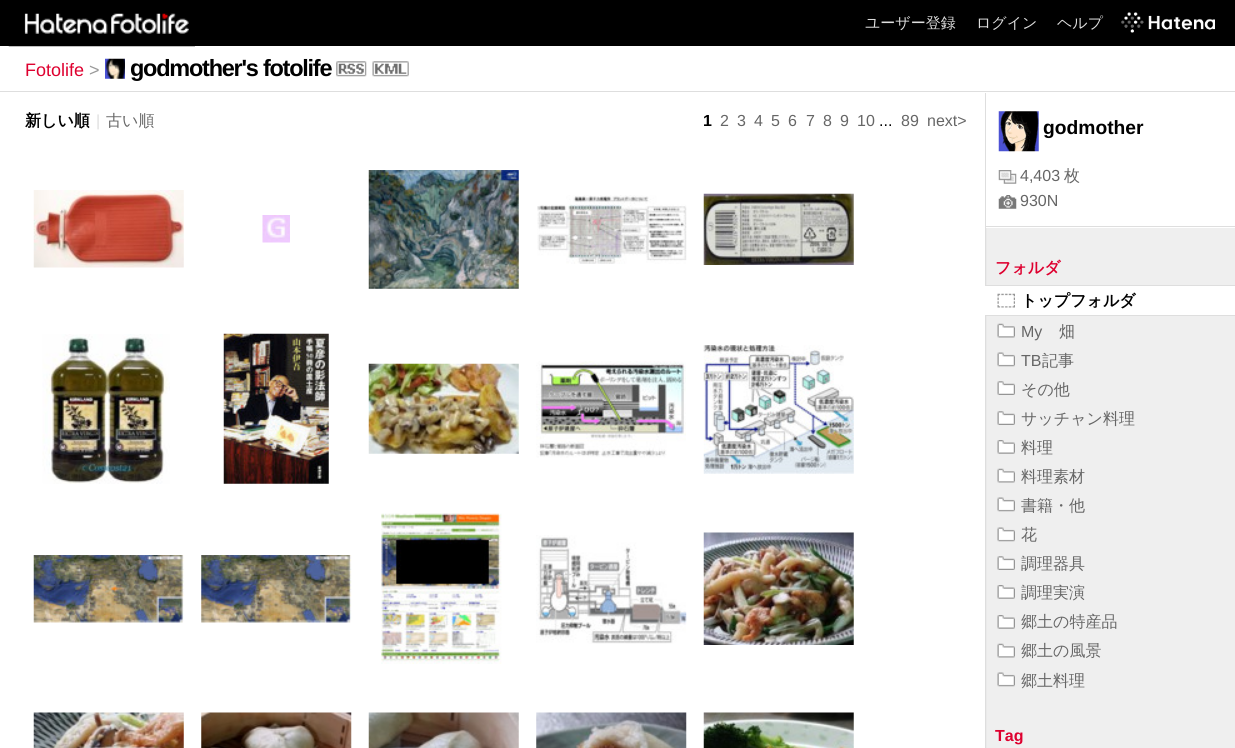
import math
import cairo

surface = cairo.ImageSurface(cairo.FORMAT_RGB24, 1235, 748)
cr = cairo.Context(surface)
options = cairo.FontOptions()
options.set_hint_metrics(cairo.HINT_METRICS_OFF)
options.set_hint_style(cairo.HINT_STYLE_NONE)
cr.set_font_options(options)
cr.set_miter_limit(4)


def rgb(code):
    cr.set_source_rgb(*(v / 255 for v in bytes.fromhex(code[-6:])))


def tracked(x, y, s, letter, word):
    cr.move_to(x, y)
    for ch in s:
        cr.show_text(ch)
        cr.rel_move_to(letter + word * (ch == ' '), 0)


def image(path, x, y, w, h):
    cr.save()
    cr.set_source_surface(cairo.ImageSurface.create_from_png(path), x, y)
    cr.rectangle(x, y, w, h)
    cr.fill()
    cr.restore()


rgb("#ffffff")
cr.paint()
image("img/1.png", 985, 93, 250, 655)
rgb("#000000")
cr.rectangle(0, 0, 1235, 46)
cr.fill()
image("img/2.png", 8, 13, 104, 34)
image("img/3.png", 111, 13, 84, 34)
image("img/4.png", 1121, 12, 94, 21)
rgb("#dedede")
cr.rectangle(0, 91, 1235, 1)
cr.fill()
image("img/5.png", 105, 58, 20, 21)
image("img/6.png", 336, 61, 31, 16)
image("img/7.png", 372, 61, 37, 16)
image("img/8.png", 33, 190, 151, 78)
image("img/9.png", 262, 215, 28, 28)
image("img/10.png", 368, 170, 151, 119)
image("img/11.png", 537, 195, 150, 69)
image("img/12.png", 703, 193, 151, 72)
image("img/13.png", 42, 334, 128, 150)
image("img/14.png", 223, 333, 106, 151)
image("img/15.png", 368, 363, 151, 91)
image("img/16.png", 536, 361, 150, 97)
image("img/17.png", 703, 345, 151, 129)
image("img/18.png", 33, 555, 151, 68)
image("img/19.png", 201, 555, 151, 68)
image("img/20.png", 381, 513, 121, 151)
image("img/21.png", 536, 535, 151, 109)
image("img/22.png", 703, 532, 151, 113)
image("img/23.png", 33, 712, 151, 36)
image("img/24.png", 201, 712, 151, 36)
image("img/25.png", 368, 712, 151, 36)
image("img/26.png", 536, 712, 151, 36)
image("img/27.png", 703, 712, 151, 36)
rgb("#ffffff")
cr.rectangle(986, 93, 249, 135)
cr.fill()
rgb("#dedede")
cr.rectangle(986, 226, 249, 1)
cr.fill()
image("img/28.png", 998, 111, 41, 41)
image("img/29.png", 998, 170, 19, 14)
image("img/30.png", 998, 195, 19, 14)
image("img/31.png", 985, 316, 250, 379)
for x, y, w, h, color in [
    (985, 286, 250, 29, "#ffffff"),
    (985, 285, 250, 1, "#dedede"),
    (985, 315, 250, 1, "#dedede"),
]:
    rgb(color)
    cr.rectangle(x, y, w, h)
    cr.fill()
image("img/32.png", 997, 293, 18, 15)
image("img/33.png", 997, 323, 18, 15)
image("img/34.png", 997, 352, 18, 15)
image("img/35.png", 997, 381, 18, 14)
image("img/35.png", 997, 411, 18, 14)
image("img/36.png", 997, 440, 18, 14)
image("img/33.png", 997, 468, 18, 15)
image("img/34.png", 997, 497, 18, 15)
image("img/34.png", 997, 527, 18, 15)
image("img/35.png", 997, 556, 18, 14)
image("img/37.png", 997, 585, 18, 14)
image("img/36.png", 997, 615, 18, 14)
image("img/33.png", 997, 643, 18, 15)
image("img/34.png", 997, 672, 18, 15)
cr.select_font_face("WenQuanYi Zen Hei Medium")
cr.set_font_size(15)
for x, y, s in [
    (865, 28, "ユーザー登録"),
    (976, 28, "ログイン"),
    (1057, 28, "ヘルプ"),
]:
    cr.move_to(x, y)
    cr.show_text(s)
cr.select_font_face("Liberation Sans")
cr.set_font_size(18)
rgb("#de002f")
cr.move_to(25, 76)
cr.show_text("Fotolife")
rgb("#999999")
cr.move_to(89, 76)
cr.show_text(">")
cr.select_font_face("Liberation Sans", cairo.FONT_SLANT_NORMAL, cairo.FONT_WEIGHT_BOLD)
cr.set_font_size(23.5)
rgb("#000000")
tracked(130, 76, "godmother's fotolife", -1.25, 0)
cr.select_font_face("WenQuanYi Zen Hei", cairo.FONT_SLANT_NORMAL, cairo.FONT_WEIGHT_BOLD)
cr.set_font_size(16)
cr.move_to(25, 126)
cr.show_text("新しい順")
cr.select_font_face("Liberation Sans")
rgb("#dedede")
cr.move_to(96, 126)
cr.show_text("|")
cr.select_font_face("WenQuanYi Zen Hei Medium")
rgb("#666666")
cr.move_to(106, 126)
cr.show_text("古い順")
cr.select_font_face("Liberation Sans", cairo.FONT_SLANT_NORMAL, cairo.FONT_WEIGHT_BOLD)
rgb("#000000")
cr.move_to(703, 126)
cr.show_text("1")
cr.select_font_face("Liberation Sans")
rgb("#666666")
for x, y, s in [
    (720, 126, "2"),
    (737, 126, "3"),
    (754, 126, "4"),
    (771, 126, "5"),
    (788, 126, "6"),
    (806, 126, "7"),
    (823, 126, "8"),
    (840, 126, "9"),
    (857, 126, "10"),
]:
    cr.move_to(x, y)
    cr.show_text(s)
rgb("#000000")
cr.move_to(879, 126)
cr.show_text("...")
rgb("#666666")
cr.move_to(901, 126)
cr.show_text("89")
cr.move_to(927, 126)
cr.show_text("next>")
cr.select_font_face("Liberation Sans", cairo.FONT_SLANT_NORMAL, cairo.FONT_WEIGHT_BOLD)
cr.set_font_size(19.25)
rgb("#000000")
cr.move_to(1043, 134)
cr.show_text("godmother")
cr.select_font_face("Liberation Sans")
cr.set_font_size(16)
rgb("#666666")
cr.move_to(1020, 181)
cr.show_text("4,403")
cr.select_font_face("WenQuanYi Zen Hei Medium")
cr.move_to(1064, 181)
cr.show_text("枚")
cr.select_font_face("Liberation Sans")
cr.move_to(1020, 206)
cr.show_text("930N")
cr.select_font_face("WenQuanYi Zen Hei", cairo.FONT_SLANT_NORMAL, cairo.FONT_WEIGHT_BOLD)
rgb("#de002f")
cr.move_to(995, 273)
cr.show_text("フォルダ")
rgb("#000000")
cr.move_to(1021, 306)
cr.show_text("トップフォルダ")
cr.select_font_face("Liberation Sans")
rgb("#666666")
cr.move_to(1021, 337)
cr.show_text("My")
cr.select_font_face("WenQuanYi Zen Hei Medium")
cr.move_to(1059, 337)
cr.show_text("畑")
cr.select_font_face("Liberation Sans")
cr.move_to(1021, 366)
cr.show_text("TB")
cr.select_font_face("WenQuanYi Zen Hei Medium")
for x, y, s in [
    (1042, 366, "記事"),
    (1021, 395, "その他"),
    (1021, 424, "サッチャン料理"),
    (1021, 453, "料理"),
    (1021, 482, "料理素材"),
    (1021, 511, "書籍・他"),
    (1021, 540, "花"),
    (1021, 569, "調理器具"),
    (1021, 598, "調理実演"),
    (1021, 627, "郷土の特産品"),
    (1021, 656, "郷土の風景"),
    (1021, 686, "郷土料理"),
]:
    cr.move_to(x, y)
    cr.show_text(s)
cr.select_font_face("Liberation Sans", cairo.FONT_SLANT_NORMAL, cairo.FONT_WEIGHT_BOLD)
rgb("#de002f")
cr.move_to(995, 741)
cr.show_text("Tag")
surface.write_to_png("page.png")
